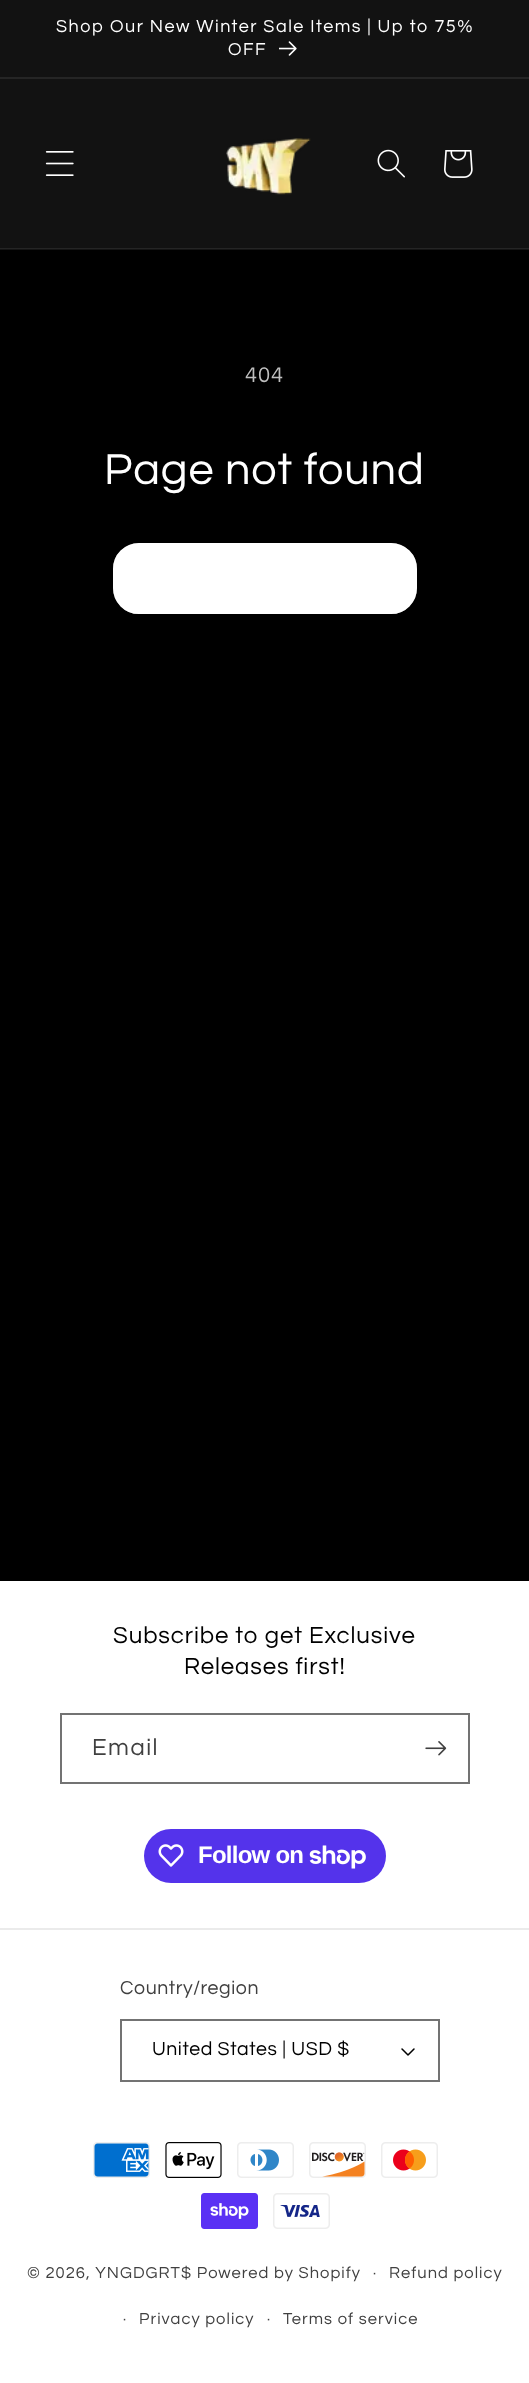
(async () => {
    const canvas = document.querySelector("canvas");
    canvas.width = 529;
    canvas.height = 2383;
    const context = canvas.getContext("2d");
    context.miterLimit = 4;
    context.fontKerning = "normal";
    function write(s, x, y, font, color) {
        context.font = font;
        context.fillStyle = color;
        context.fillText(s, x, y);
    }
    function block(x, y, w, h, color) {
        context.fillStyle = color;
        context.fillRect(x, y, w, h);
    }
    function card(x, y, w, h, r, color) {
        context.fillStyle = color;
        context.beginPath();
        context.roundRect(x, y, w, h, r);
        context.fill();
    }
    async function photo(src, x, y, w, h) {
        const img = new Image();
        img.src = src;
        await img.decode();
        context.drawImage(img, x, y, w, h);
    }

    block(0, 0, 529, 2383, "rgb(0, 0, 0)");
    block(0, 249, 529, 1, "rgb(20, 20, 20)");
    block(0, 0, 529, 77, "rgb(18, 18, 18)");
    block(0, 77, 529, 2, "rgb(37, 37, 37)");
    context.letterSpacing = "1.5px";
    write("Shop Our New Winter Sale Items | Up to 75%", 56, 32, "18px Questrial", "rgb(255, 255, 255)");
    write("OFF", 228, 55, "18px Questrial", "rgb(255, 255, 255)");
    await photo("media/1.png", 279, 41, 18, 15);
    block(0, 79, 529, 169, "rgb(18, 18, 18)");
    block(0, 248, 529, 1, "rgb(37, 37, 37)");
    await photo("media/2.png", 45, 151, 29, 25);
    await photo("media/3.png", 226, 138, 85, 57);
    await photo("media/4.png", 377, 149, 28, 29);
    await photo("media/5.png", 444, 150, 29, 28);
    context.letterSpacing = "0.9px";
    write("404", 245, 382, "22px Questrial", "rgb(191, 191, 191)");
    write("Page not found", 104, 484, "45px Questrial", "rgb(255, 255, 255)");
    context.beginPath();
    context.roundRect(114, 544, 302, 69, 25);
    context.fill();
    context.strokeStyle = "rgb(255, 255, 255)";
    context.lineWidth = 2;
    context.stroke();
    context.beginPath();
    context.roundRect(114, 544, 302, 69, 25);
    context.strokeStyle = "rgba(255, 255, 255, 0.45)";
    context.stroke();
    block(0, 1581, 529, 802, "rgb(255, 255, 255)");
    write("Subscribe to get Exclusive", 113, 1643, "24px Questrial", "rgb(0, 0, 0)");
    write("Releases first!", 184, 1674, "24px Questrial", "rgb(0, 0, 0)");
    context.strokeStyle = "rgb(115, 115, 115)";
    context.strokeRect(61, 1714, 408, 69);
    context.letterSpacing = "1.5px";
    write("Email", 92, 1755, "24px Questrial", "rgb(64, 64, 64)");
    await photo("media/6.png", 425, 1741, 22, 15);
    card(144, 1829, 242, 54, 27, "rgb(84, 51, 235)");
    await photo("media/7.png", 158, 1844, 26, 23);
    context.letterSpacing = "-0.75px";
    write("Follow on", 198, 1863, "bold 24px Liberation Sans", "rgb(255, 255, 255)");
    await photo("media/8.png", 309, 1845, 57, 24);
    block(0, 1928, 529, 2, "rgb(235, 235, 235)");
    context.letterSpacing = "0.6px";
    write("Country/region", 120, 1994, "19.5px Questrial", "rgb(64, 64, 64)");
    await photo("media/9.png", 401, 2048, 14, 8);
    context.strokeRect(121, 2020, 318, 61);
    write("United States | USD $", 152, 2055, "19.5px Questrial", "rgb(0, 0, 0)");
    await photo("media/10.png", 93, 2142, 57, 36);
    await photo("media/11.png", 165, 2142, 57, 36);
    await photo("media/12.png", 237, 2142, 57, 36);
    await photo("media/13.png", 309, 2142, 57, 36);
    await photo("media/14.png", 381, 2142, 57, 36);
    await photo("media/15.png", 201, 2193, 57, 36);
    await photo("media/16.png", 273, 2193, 57, 36);
    context.letterSpacing = "1.05px";
    write("© 2026, YNGDGRT$ Powered by Shopify", 27, 2278, "16.5px Questrial", "rgb(64, 64, 64)");
    write("·", 373, 2278, "15px Questrial", "rgb(64, 64, 64)");
    write("Refund policy", 389, 2278, "16.5px Questrial", "rgb(64, 64, 64)");
    write("·", 123, 2324, "15px Questrial", "rgb(64, 64, 64)");
    write("Privacy policy", 139, 2324, "16.5px Questrial", "rgb(64, 64, 64)");
    write("·", 267, 2324, "15px Questrial", "rgb(64, 64, 64)");
    write("Terms of service", 283, 2324, "16.5px Questrial", "rgb(64, 64, 64)");
})();
